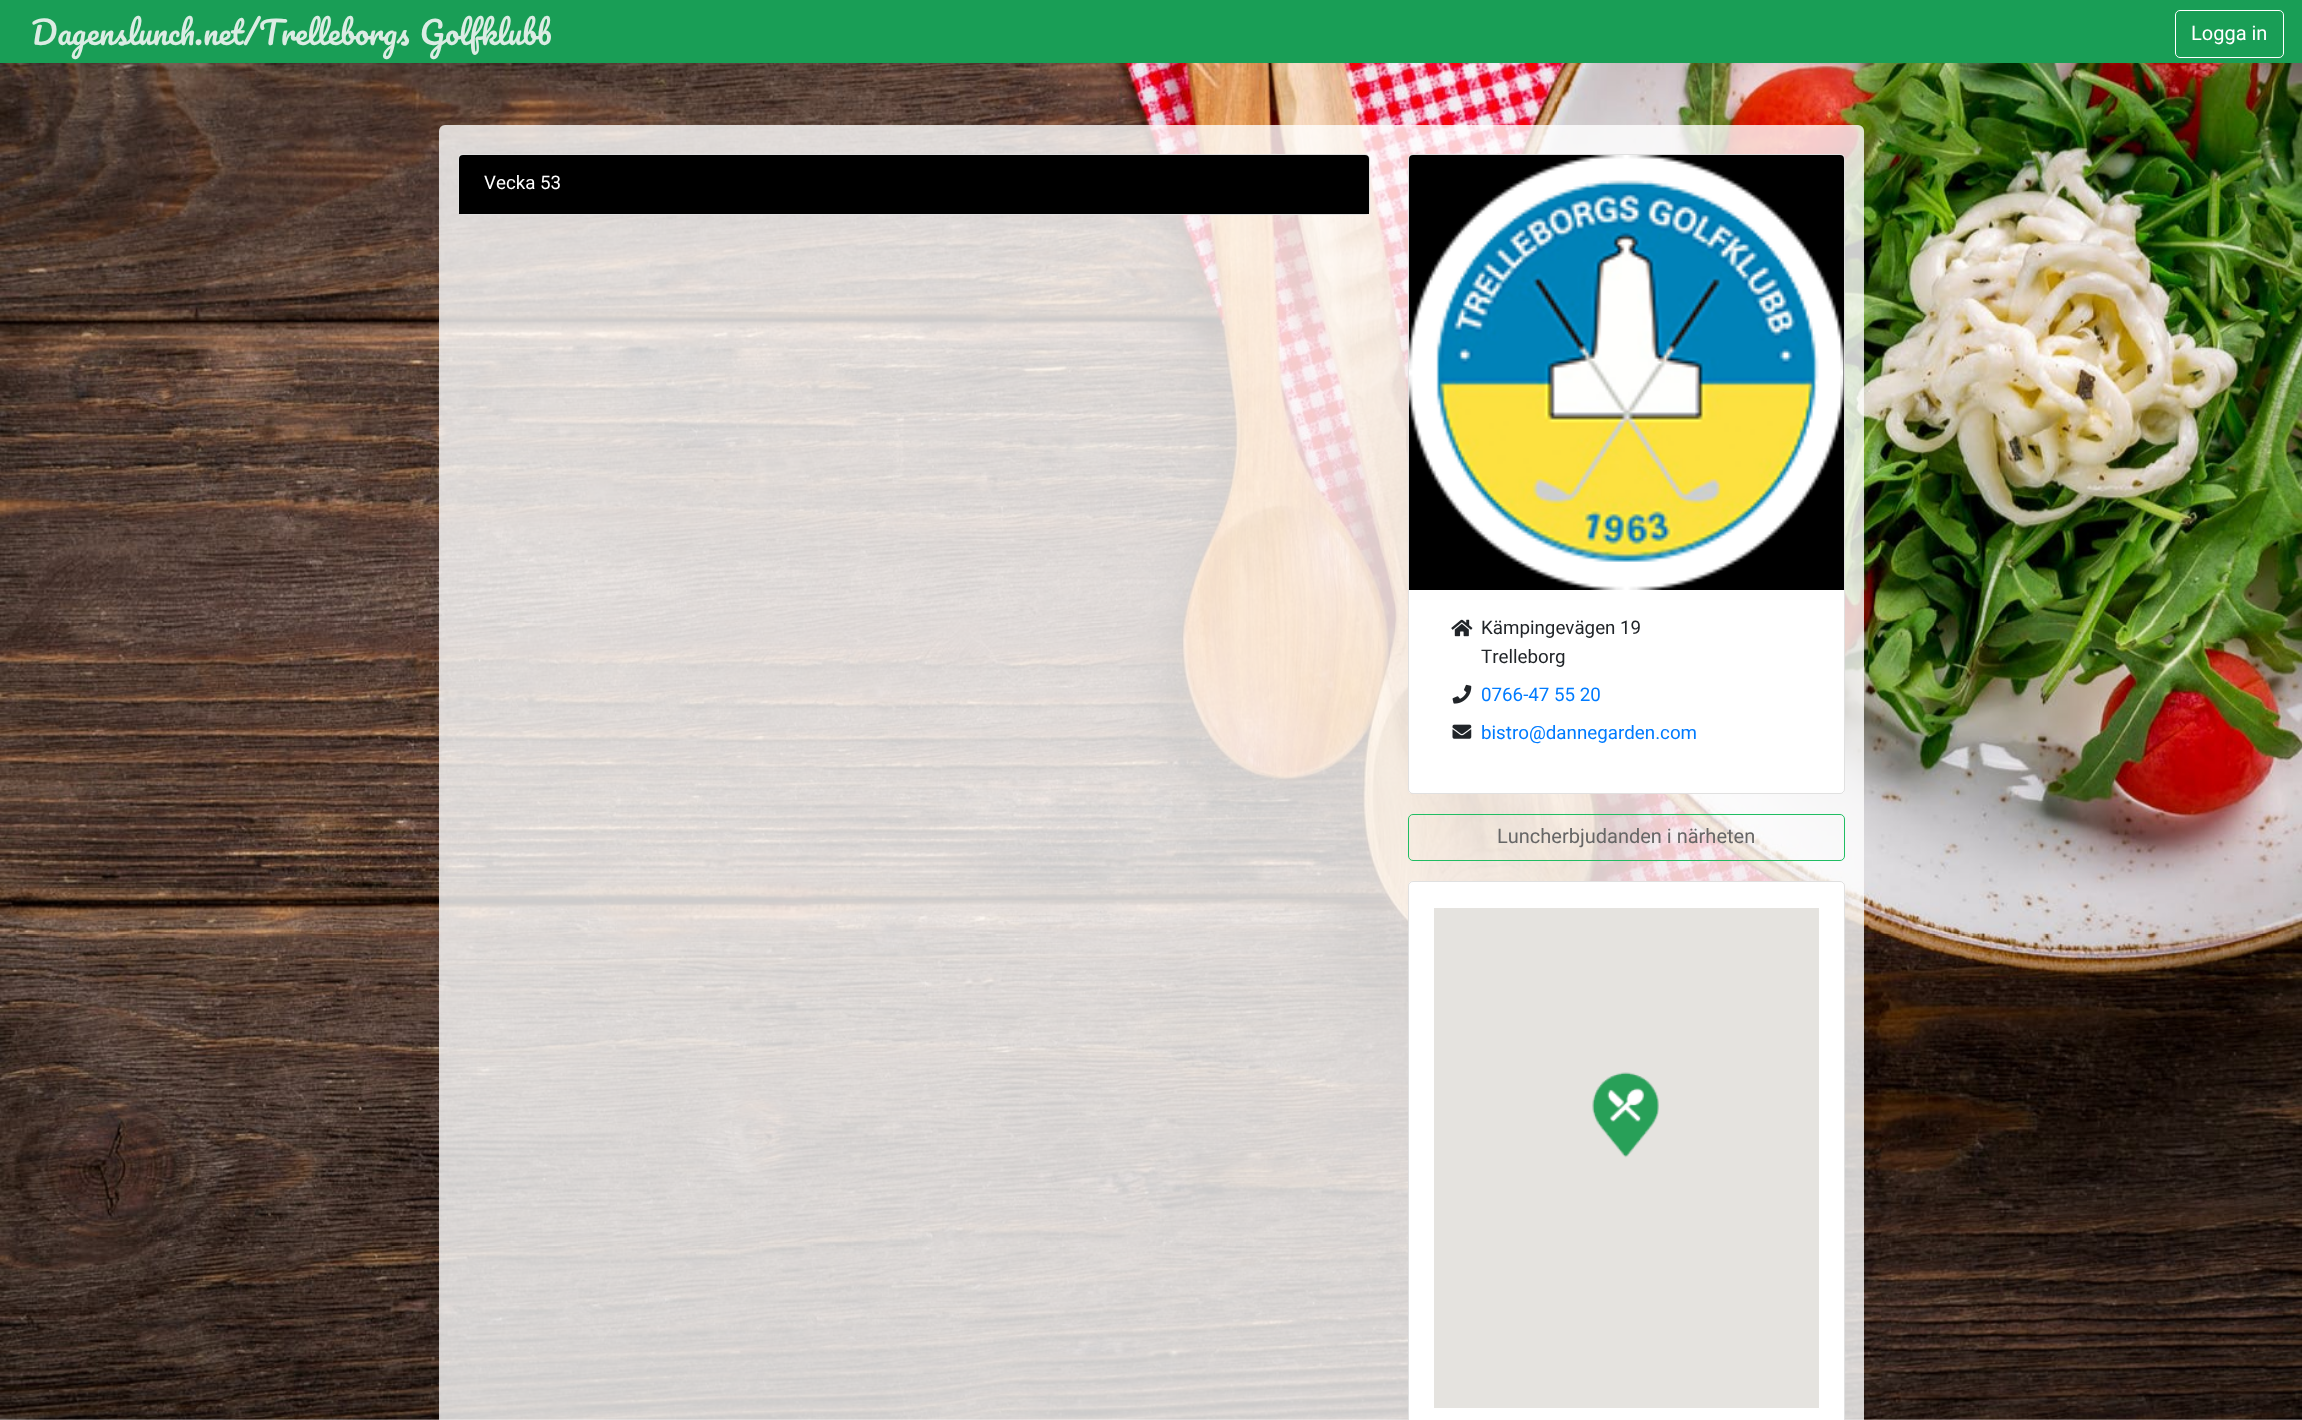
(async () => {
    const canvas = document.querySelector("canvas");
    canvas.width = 2302;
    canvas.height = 1420;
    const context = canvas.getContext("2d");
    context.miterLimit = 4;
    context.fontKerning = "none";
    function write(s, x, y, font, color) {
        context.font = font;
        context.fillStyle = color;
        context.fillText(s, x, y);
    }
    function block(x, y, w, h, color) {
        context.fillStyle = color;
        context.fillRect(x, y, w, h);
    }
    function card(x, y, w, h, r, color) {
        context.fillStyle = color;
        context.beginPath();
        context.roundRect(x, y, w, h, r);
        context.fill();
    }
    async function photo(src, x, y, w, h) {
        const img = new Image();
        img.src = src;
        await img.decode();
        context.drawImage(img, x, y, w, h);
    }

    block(0, 0, 2302, 1420, "rgb(255, 255, 255)");
    await photo("media/1.png", 0, 63, 2302, 1357);
    block(0, 0, 2302, 63, "rgb(25, 158, 86)");
    write("Dagenslunch.net/", 31, 45, "31.25px Pacifico", "rgb(219, 236, 227)");
    context.wordSpacing = "2px";
    write("Trelleborgs Golfklubb", 259, 45, "31.25px Pacifico", "rgb(219, 236, 227)");
    context.beginPath();
    context.roundRect(2175.5, 10.5, 108, 47, 4.5);
    context.strokeStyle = "rgb(255, 255, 255)";
    context.stroke();
    context.wordSpacing = "0px";
    write("Logga in", 2191, 40, "20px Roboto", "rgb(255, 255, 255)");
    card(439, 125, 1425, 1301, 6, "rgba(255, 255, 255, 0.8)");
    card(458, 154, 912, 61, 5, "rgb(255, 255, 255)");
    context.beginPath();
    context.roundRect(458.5, 154.5, 911, 60, 4.5);
    context.strokeStyle = "rgba(0, 0, 0, 0.12)";
    context.stroke();
    context.fillStyle = "rgb(0, 0, 0)";
    context.beginPath();
    context.roundRect(459, 155, 910, 59, [4, 4, 0, 0]);
    context.fill();
    write("Vecka 53", 484, 189, "18.75px Roboto", "rgb(255, 255, 255)");
    card(1408, 154, 437, 640, 5, "rgb(255, 255, 255)");
    context.beginPath();
    context.roundRect(1408.5, 154.5, 436, 639, 4.5);
    context.stroke();
    context.fillStyle = "rgb(0, 0, 0)";
    context.beginPath();
    context.roundRect(1409, 155, 435, 435, [4, 4, 0, 0]);
    context.fill();
    await photo("media/2.png", 1409, 155, 435, 435);
    await photo("media/3.png", 1451, 619, 22, 18);
    write("Kämpingevägen 19", 1481, 634, "18.75px Roboto", "rgb(33, 37, 41)");
    write("Trelleborg", 1481, 663, "18.75px Roboto", "rgb(33, 37, 41)");
    await photo("media/4.png", 1452, 684, 20, 20);
    write("0766-47 55 20", 1481, 701, "18.75px Roboto", "rgb(0, 123, 255)");
    await photo("media/5.png", 1452, 724, 20, 15);
    write("bistro@dannegarden.com", 1481, 739, "18.75px Roboto", "rgb(0, 123, 255)");
    context.beginPath();
    context.roundRect(1408.5, 814.5, 436, 46, 4.5);
    context.strokeStyle = "rgb(32, 189, 98)";
    context.stroke();
    write("Luncherbjudanden i närheten", 1497, 843, "20px Roboto", "rgb(102, 102, 102)");
    card(1408, 881, 437, 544, 5, "rgb(255, 255, 255)");
    context.beginPath();
    context.roundRect(1408.5, 881.5, 436, 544, 4.5);
    context.strokeStyle = "rgba(0, 0, 0, 0.12)";
    context.stroke();
    block(1434, 908, 385, 500, "rgb(229, 227, 223)");
    await photo("media/6.png", 1592, 1072, 67, 86);
})();
